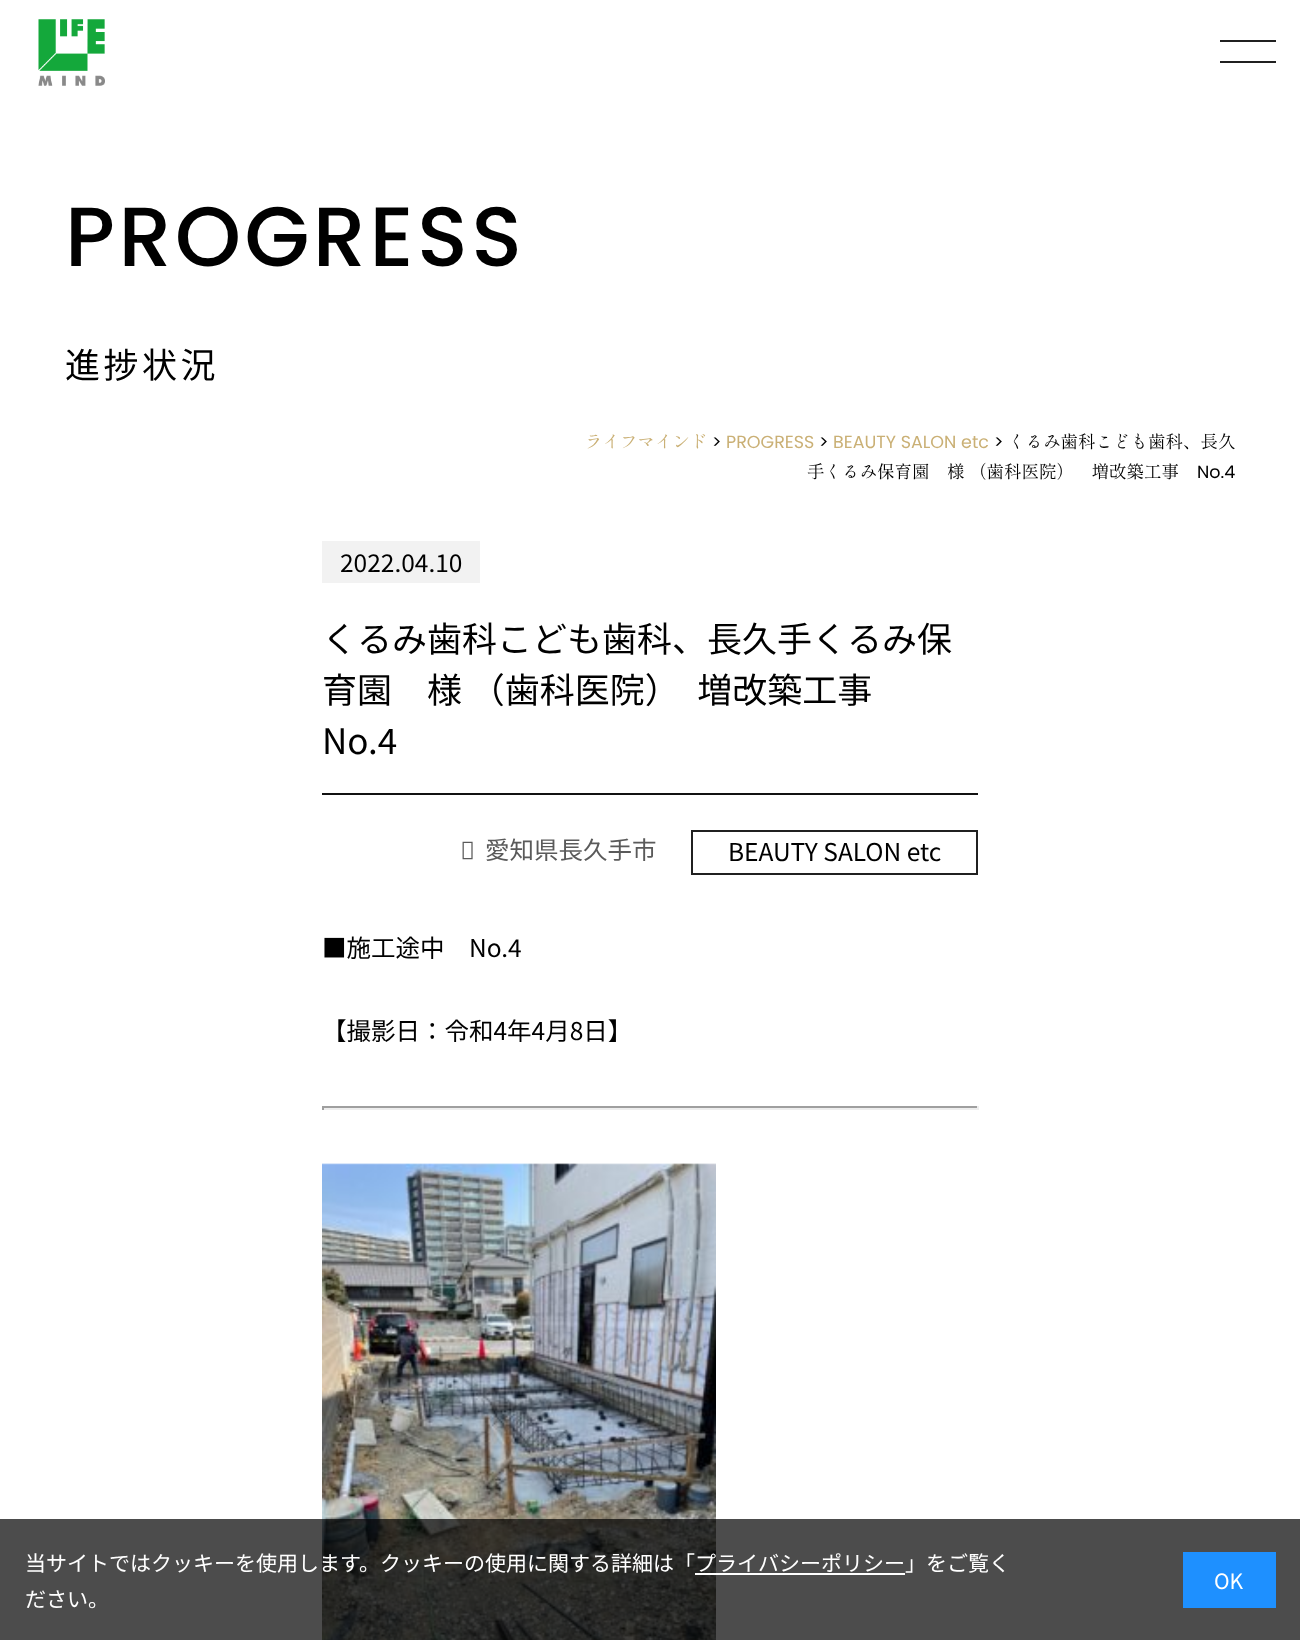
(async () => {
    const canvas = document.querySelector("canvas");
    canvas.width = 1300;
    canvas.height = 1640;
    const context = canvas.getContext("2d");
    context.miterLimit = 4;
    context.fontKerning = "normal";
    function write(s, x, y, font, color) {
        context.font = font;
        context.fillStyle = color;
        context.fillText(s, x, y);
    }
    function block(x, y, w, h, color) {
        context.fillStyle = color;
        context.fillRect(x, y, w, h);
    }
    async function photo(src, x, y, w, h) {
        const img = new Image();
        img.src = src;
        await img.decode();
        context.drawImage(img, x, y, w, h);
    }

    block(0, 0, 1300, 1640, "rgb(255, 255, 255)");
    await photo("media/1.png", 38, 19, 67, 67);
    block(1220, 40, 56, 2, "rgb(32, 32, 32)");
    block(1220, 61, 56, 2, "rgb(32, 32, 32)");
    context.letterSpacing = "3.5px";
    write("PROGRESS", 65, 266, "500 84px Poppins", "rgb(0, 0, 0)");
    write("進捗状況", 65, 378, "100 35px Noto Sans JP", "rgb(0, 0, 0)");
    context.letterSpacing = "0px";
    write("ライフマインド", 585, 448, "17.5px Shippori Mincho", "rgb(202, 176, 117)");
    write(">", 712, 448, "17.5px Poppins", "rgb(0, 0, 0)");
    write("PROGRESS", 726, 448, "17.5px Poppins", "rgb(202, 176, 117)");
    write(">", 819, 448, "17.5px Poppins", "rgb(0, 0, 0)");
    write("BEAUTY SALON etc", 833, 448, "17.5px Poppins", "rgb(202, 176, 117)");
    write(">", 994, 448, "17.5px Poppins", "rgb(0, 0, 0)");
    write("くるみ歯科こども歯科、長久", 1008, 448, "17.5px Shippori Mincho", "rgb(0, 0, 0)");
    write("手くるみ保育園　様 （歯科医院）　増改築工事", 807, 478, "17.5px Shippori Mincho", "rgb(0, 0, 0)");
    write("No.4", 1197, 478, "17.5px Poppins", "rgb(0, 0, 0)");
    block(322, 541, 158, 42, "rgb(242, 242, 242)");
    write("2022.04.10", 340, 572, "100 24.5px Noto Sans JP", "rgb(0, 0, 0)");
    block(322, 793, 656, 2, "rgb(17, 17, 17)");
    write("くるみ歯科こども歯科、長久手くるみ保", 322, 652, "100 35px Noto Sans JP", "rgb(0, 0, 0)");
    write("育園　様 （歯科医院）　増改築工事", 322, 703, "100 35px Noto Sans JP", "rgb(0, 0, 0)");
    write("No.4", 322, 754, "100 35px Noto Sans JP", "rgb(0, 0, 0)");
    await photo("media/2.png", 462, 841, 11, 19);
    write("愛知県長久手市", 485, 859, "100 24.5px Noto Sans JP", "rgb(90, 90, 90)");
    context.strokeStyle = "rgb(32, 32, 32)";
    context.lineWidth = 2;
    context.strokeRect(692, 831, 285, 43);
    write("BEAUTY SALON etc", 728, 861, "100 24.5px Noto Sans JP", "rgb(0, 0, 0)");
    write("■施工途中　No.4", 322, 957, "100 24.5px Noto Sans JP", "rgb(0, 0, 0)");
    write("【撮影日：令和4年4月8日】", 322, 1040, "100 24.5px Noto Sans JP", "rgb(0, 0, 0)");
    block(322, 1106, 656, 2, "rgb(159, 159, 159)");
    block(977, 1106, 2, 4, "rgb(238, 238, 238)");
    block(322, 1108, 656, 2, "rgb(238, 238, 238)");
    block(322, 1106, 2, 4, "rgb(159, 159, 159)");
    await photo("media/3.png", 322, 1163, 394, 477);
    block(0, 1519, 1300, 121, "rgba(0, 0, 0, 0.7)");
    write("当サイトではクッキーを使用します。クッキーの使用に関する詳細は「プライバシーポリシー」をご覧く", 25, 1571, "100 21px Noto Sans JP", "rgb(255, 255, 255)");
    block(695, 1573, 210, 2, "rgb(255, 255, 255)");
    write("ださい。", 25, 1607, "100 21px Noto Sans JP", "rgb(255, 255, 255)");
    block(1183, 1552, 93, 56, "rgb(30, 144, 255)");
    write("OK", 1214, 1589, "100 21px Noto Sans JP", "rgb(255, 255, 255)");
})();
